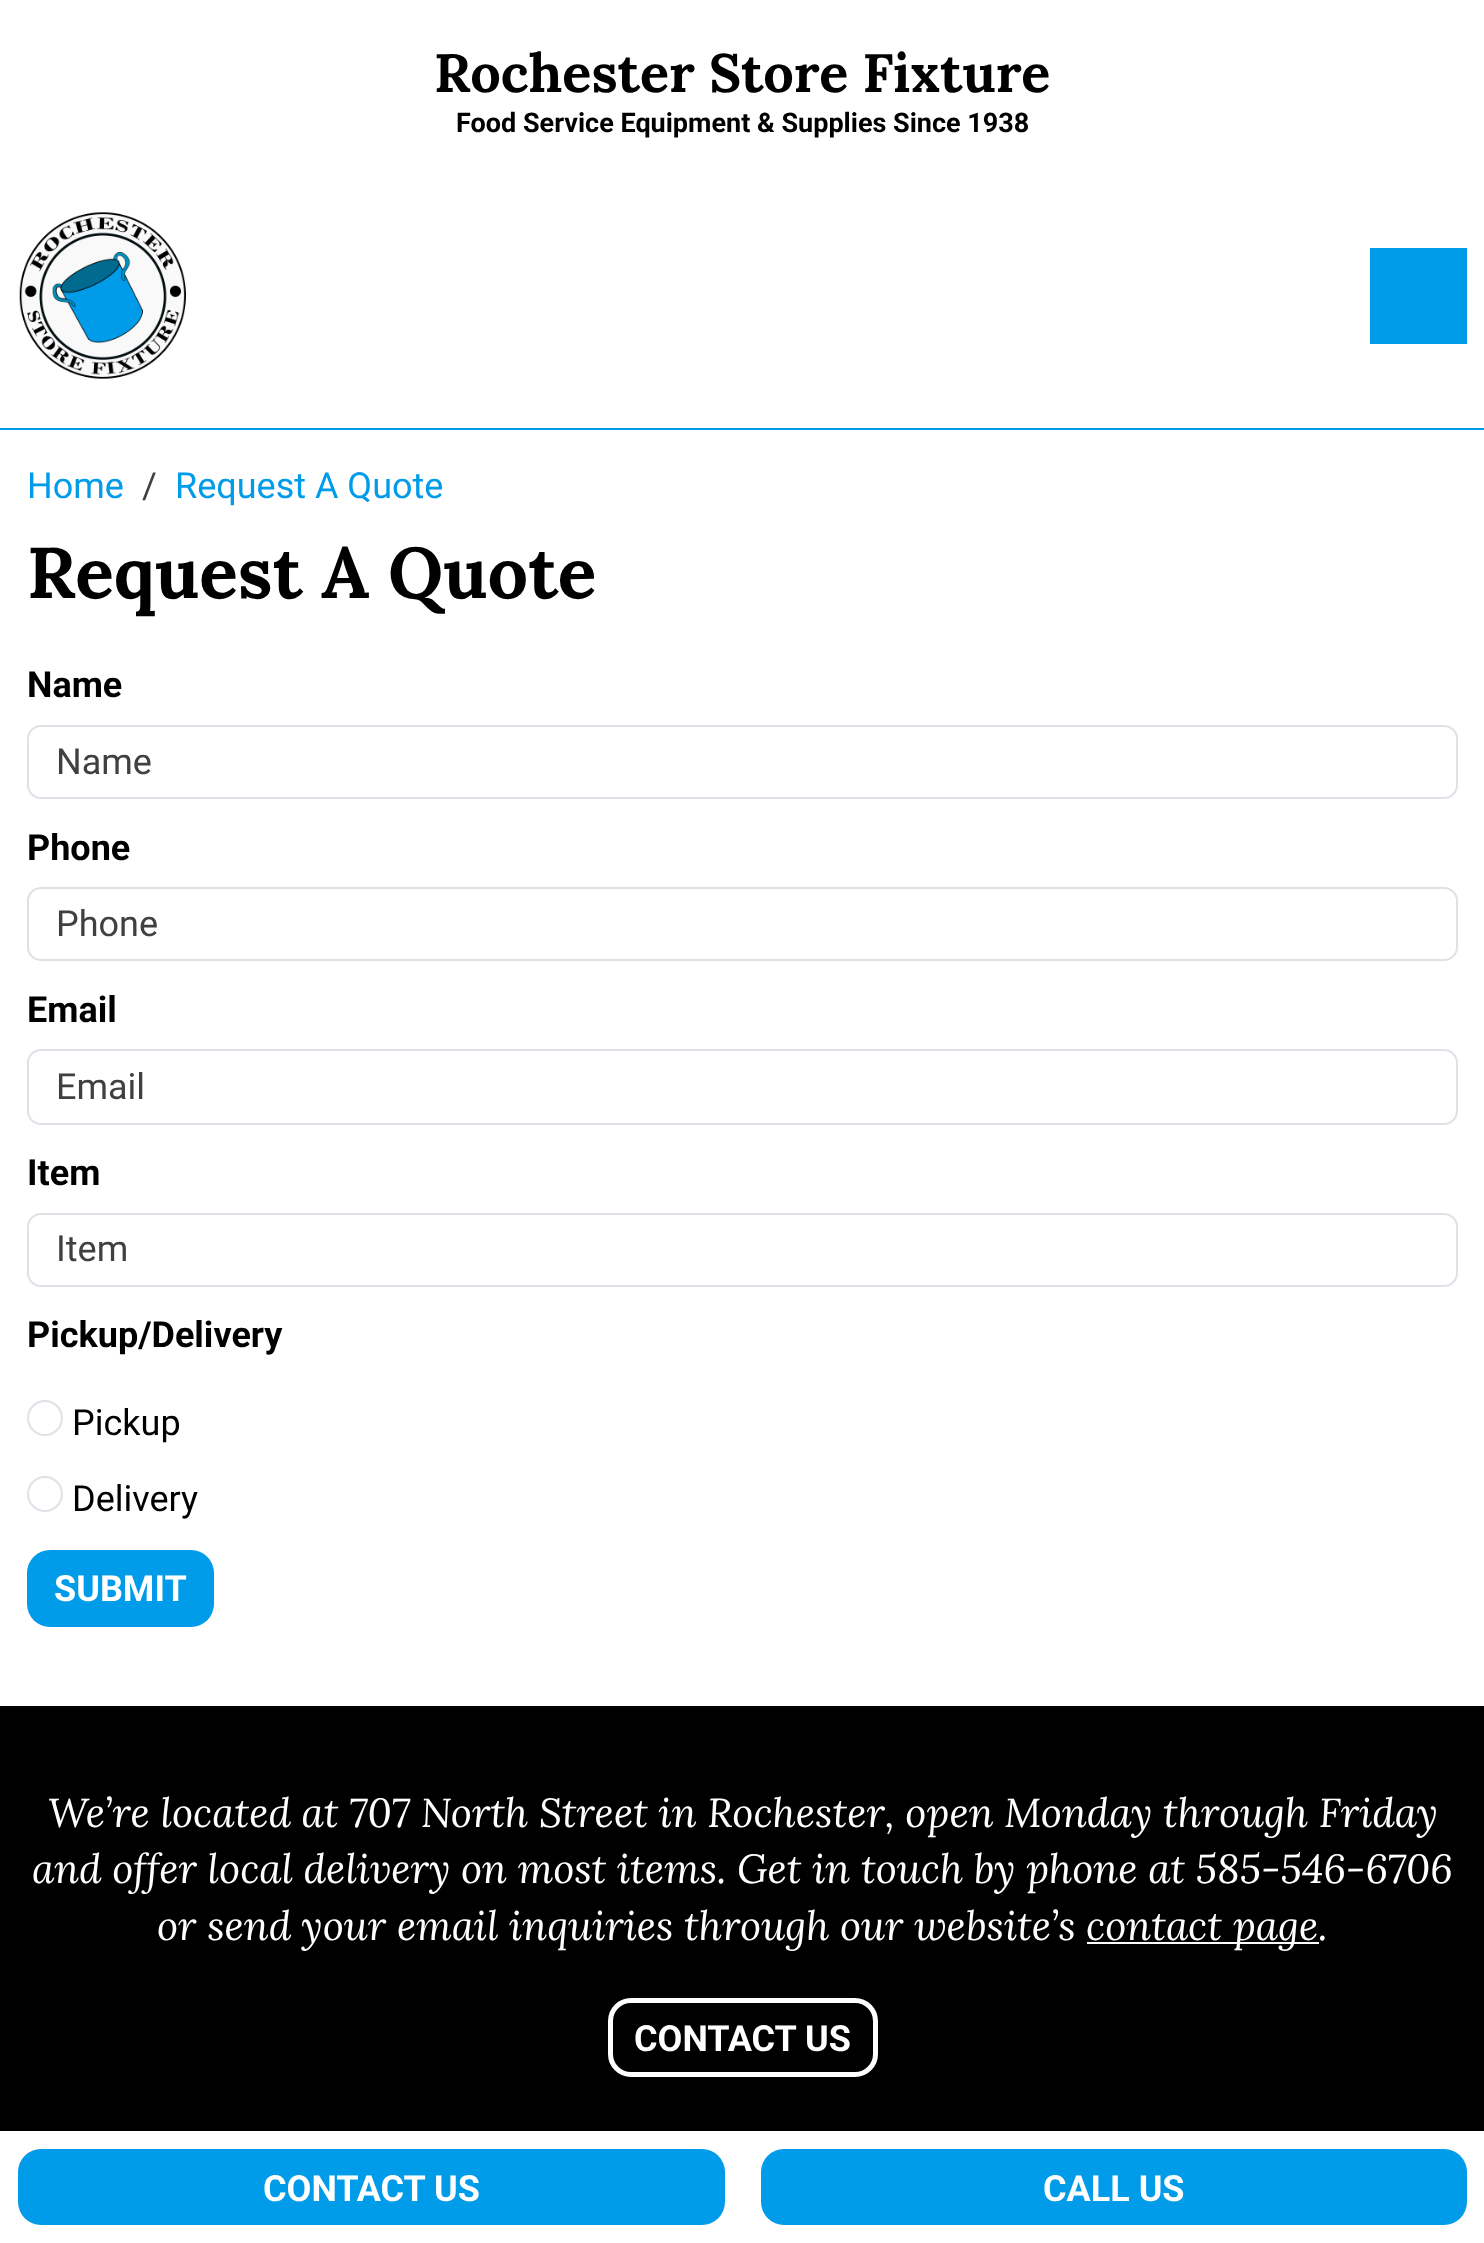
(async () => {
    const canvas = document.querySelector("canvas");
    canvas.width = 1484;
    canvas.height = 2243;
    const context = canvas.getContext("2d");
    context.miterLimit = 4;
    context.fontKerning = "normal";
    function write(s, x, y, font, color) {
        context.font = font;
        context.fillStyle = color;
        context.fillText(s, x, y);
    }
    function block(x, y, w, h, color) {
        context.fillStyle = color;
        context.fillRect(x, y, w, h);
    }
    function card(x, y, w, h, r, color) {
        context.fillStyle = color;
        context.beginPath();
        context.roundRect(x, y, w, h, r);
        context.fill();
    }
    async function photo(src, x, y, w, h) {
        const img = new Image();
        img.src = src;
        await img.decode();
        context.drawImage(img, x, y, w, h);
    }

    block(0, 0, 1484, 2243, "rgb(255, 255, 255)");
    block(0, 428, 1484, 2, "rgb(0, 155, 233)");
    write("Rochester Store Fixture", 434, 92, "bold 54px Lora", "rgb(0, 0, 0)");
    write("Food Service Equipment & Supplies Since 1938", 456, 132, "bold 27px Roboto", "rgb(0, 0, 0)");
    await photo("media/1.png", 19, 212, 167, 167);
    block(1370, 248, 97, 96, "rgb(0, 155, 233)");
    write("Home", 27, 498, "36px Roboto", "rgb(0, 155, 233)");
    write("/", 142, 498, "36px Roboto", "rgb(64, 64, 64)");
    write("Request A Quote", 175, 498, "36px Roboto", "rgb(0, 155, 233)");
    write("Request A Quote", 27, 598, "bold 71.75px Lora", "rgb(0, 0, 0)");
    write("Name", 27, 697, "bold 36px Roboto", "rgb(0, 0, 0)");
    context.beginPath();
    context.roundRect(28, 726, 1429, 72, 13);
    context.strokeStyle = "rgb(222, 226, 230)";
    context.lineWidth = 2;
    context.stroke();
    write("Name", 56, 774, "36px Roboto", "rgb(64, 64, 64)");
    write("Phone", 27, 860, "bold 36px Roboto", "rgb(0, 0, 0)");
    context.beginPath();
    context.roundRect(28, 888, 1429, 72, 13);
    context.stroke();
    write("Phone", 56, 936, "36px Roboto", "rgb(64, 64, 64)");
    write("Email", 27, 1022, "bold 36px Roboto", "rgb(0, 0, 0)");
    context.beginPath();
    context.roundRect(28, 1050, 1429, 74, 13);
    context.stroke();
    write("Email", 56, 1099, "36px Roboto", "rgb(64, 64, 64)");
    write("Item", 27, 1185, "bold 36px Roboto", "rgb(0, 0, 0)");
    context.beginPath();
    context.roundRect(28, 1214, 1429, 72, 13);
    context.stroke();
    write("Item", 56, 1261, "36px Roboto", "rgb(64, 64, 64)");
    write("Pickup/Delivery", 27, 1347, "bold 36px Roboto", "rgb(0, 0, 0)");
    context.beginPath();
    context.arc(45, 1418, 17, 0, Math.PI * 2);
    context.stroke();
    write("Pickup", 72, 1435, "36px Roboto", "rgb(0, 0, 0)");
    context.beginPath();
    context.arc(45, 1494, 17, 0, Math.PI * 2);
    context.stroke();
    write("Delivery", 72, 1511, "36px Roboto", "rgb(0, 0, 0)");
    card(27, 1550, 187, 77, 23, "rgb(0, 155, 233)");
    write("SUBMIT", 54, 1601, "bold 36px Roboto", "rgb(255, 255, 255)");
    block(0, 1706, 1484, 425, "rgb(0, 0, 0)");
    write("We’re located at 707 North Street in Rochester, open Monday through Friday", 48, 1827, "italic 40.5px Lora", "rgb(255, 255, 255)");
    write("and offer local delivery on most items. Get in touch by phone at 585-546-6706", 32, 1883, "italic 40.5px Lora", "rgb(255, 255, 255)");
    write("or send your email inquiries through our website’s", 157, 1940, "italic 40.5px Lora", "rgb(255, 255, 255)");
    block(1087, 1942, 232, 2, "rgb(255, 255, 255)");
    write("contact page.", 1086, 1940, "italic 40.5px Lora", "rgb(255, 255, 255)");
    context.beginPath();
    context.roundRect(610.5, 2000.5, 265, 74, 20.5);
    context.strokeStyle = "rgb(255, 255, 255)";
    context.lineWidth = 5;
    context.stroke();
    write("CONTACT US", 634, 2051, "bold 36px Roboto", "rgb(255, 255, 255)");
    card(18, 2149, 707, 76, 23, "rgb(0, 155, 233)");
    write("CONTACT US", 263, 2201, "bold 36px Roboto", "rgb(255, 255, 255)");
    card(761, 2149, 706, 76, 23, "rgb(0, 155, 233)");
    write("CALL US", 1043, 2201, "bold 36px Roboto", "rgb(255, 255, 255)");
})();
